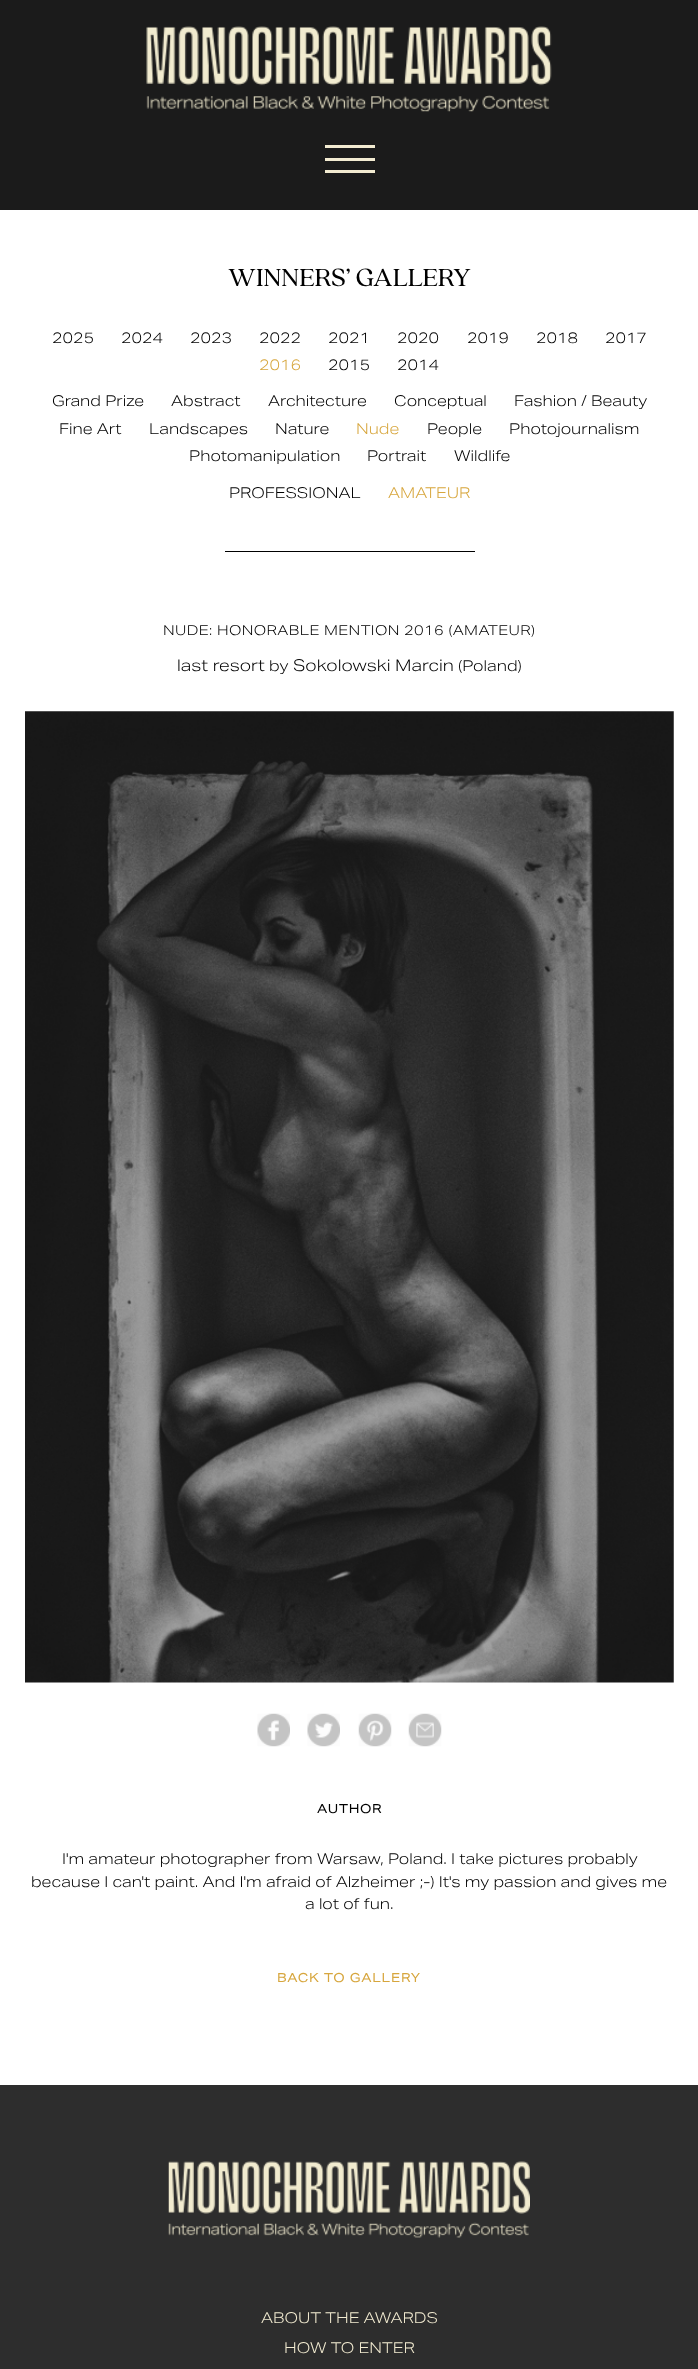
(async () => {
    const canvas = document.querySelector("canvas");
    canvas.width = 698;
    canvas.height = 2369;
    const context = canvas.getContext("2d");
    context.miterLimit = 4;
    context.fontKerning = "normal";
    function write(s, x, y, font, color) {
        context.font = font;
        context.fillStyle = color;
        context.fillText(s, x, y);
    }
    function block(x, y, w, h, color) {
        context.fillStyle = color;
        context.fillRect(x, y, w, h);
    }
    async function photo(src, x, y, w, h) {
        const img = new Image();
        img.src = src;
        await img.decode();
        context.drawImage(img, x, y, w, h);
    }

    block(0, 0, 698, 2369, "rgb(27, 27, 27)");
    await photo("media/1.png", 146, 26, 406, 86);
    block(325, 170, 50, 3, "rgb(242, 235, 209)");
    block(325, 145, 50, 3, "rgb(242, 235, 209)");
    block(325, 158, 50, 3, "rgb(242, 235, 209)");
    block(0, 210, 698, 1875, "rgb(255, 255, 255)");
    write("WINNERS’ GALLERY", 228, 286, "27.5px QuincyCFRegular", "rgb(0, 0, 0)");
    write("2025", 52, 343, "300 15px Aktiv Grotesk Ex", "rgb(0, 0, 0)");
    write("2024", 121, 343, "300 15px Aktiv Grotesk Ex", "rgb(0, 0, 0)");
    write("2023", 190, 343, "300 15px Aktiv Grotesk Ex", "rgb(0, 0, 0)");
    write("2022", 259, 343, "300 15px Aktiv Grotesk Ex", "rgb(0, 0, 0)");
    write("2021", 328, 343, "300 15px Aktiv Grotesk Ex", "rgb(0, 0, 0)");
    write("2020", 397, 343, "300 15px Aktiv Grotesk Ex", "rgb(0, 0, 0)");
    write("2019", 467, 343, "300 15px Aktiv Grotesk Ex", "rgb(0, 0, 0)");
    write("2018", 536, 343, "300 15px Aktiv Grotesk Ex", "rgb(0, 0, 0)");
    write("2017", 605, 343, "300 15px Aktiv Grotesk Ex", "rgb(0, 0, 0)");
    write("2016", 259, 370, "300 15px Aktiv Grotesk Ex", "rgb(215, 166, 61)");
    write("2015", 328, 370, "300 15px Aktiv Grotesk Ex", "rgb(0, 0, 0)");
    write("2014", 397, 370, "300 15px Aktiv Grotesk Ex", "rgb(0, 0, 0)");
    write("Grand Prize", 52, 406, "300 15px Aktiv Grotesk Ex", "rgb(0, 0, 0)");
    write("Abstract", 171, 406, "300 15px Aktiv Grotesk Ex", "rgb(0, 0, 0)");
    write("Architecture", 268, 406, "300 15px Aktiv Grotesk Ex", "rgb(0, 0, 0)");
    write("Conceptual", 394, 406, "300 15px Aktiv Grotesk Ex", "rgb(0, 0, 0)");
    write("Fashion / Beauty", 514, 406, "300 15px Aktiv Grotesk Ex", "rgb(0, 0, 0)");
    write("Fine Art", 59, 434, "300 15px Aktiv Grotesk Ex", "rgb(0, 0, 0)");
    write("Landscapes", 149, 434, "300 15px Aktiv Grotesk Ex", "rgb(0, 0, 0)");
    write("Nature", 275, 434, "300 15px Aktiv Grotesk Ex", "rgb(0, 0, 0)");
    write("Nude", 356, 434, "300 15px Aktiv Grotesk Ex", "rgb(215, 166, 61)");
    write("People", 427, 434, "300 15px Aktiv Grotesk Ex", "rgb(0, 0, 0)");
    write("Photojournalism", 509, 434, "300 15px Aktiv Grotesk Ex", "rgb(0, 0, 0)");
    write("Photomanipulation", 189, 461, "300 15px Aktiv Grotesk Ex", "rgb(0, 0, 0)");
    write("Portrait", 367, 461, "300 15px Aktiv Grotesk Ex", "rgb(0, 0, 0)");
    write("Wildlife", 454, 461, "300 15px Aktiv Grotesk Ex", "rgb(0, 0, 0)");
    write("PROFESSIONAL", 229, 498, "300 15px Aktiv Grotesk Ex", "rgb(0, 0, 0)");
    write("AMATEUR", 388, 498, "300 15px Aktiv Grotesk Ex", "rgb(215, 166, 61)");
    block(225, 551, 250, 1, "rgb(0, 0, 0)");
    context.letterSpacing = "0.4px";
    write("NUDE: HONORABLE MENTION 2016 (AMATEUR)", 163, 635, "300 13.75px Aktiv Grotesk Ex", "rgb(0, 0, 0)");
    context.letterSpacing = "0px";
    write("last resort", 177, 671, "300 16.25px Aktiv Grotesk Ex", "rgb(0, 0, 0)");
    write("by", 269, 671, "300 15px Aktiv Grotesk Ex", "rgb(0, 0, 0)");
    write("Sokolowski Marcin", 293, 671, "300 16.25px Aktiv Grotesk Ex", "rgb(0, 0, 0)");
    write("(Poland)", 458, 671, "300 15px Aktiv Grotesk Ex", "rgb(0, 0, 0)");
    await photo("media/2.png", 25, 711, 649, 972);
    await photo("media/3.png", 257, 1713, 33, 34);
    await photo("media/4.png", 307, 1713, 33, 34);
    await photo("media/5.png", 358, 1713, 34, 34);
    await photo("media/6.png", 408, 1713, 34, 34);
    context.letterSpacing = "0.75px";
    write("AUTHOR", 317, 1813, "12.5px Aktiv Grotesk Ex", "rgb(0, 0, 0)");
    context.letterSpacing = "0px";
    write("I'm amateur photographer from Warsaw, Poland. I take pictures probably", 62, 1864, "300 15px Aktiv Grotesk Ex", "rgb(0, 0, 0)");
    write("because I can't paint. And I'm afraid of Alzheimer ;-) It's my passion and gives me", 31, 1887, "300 15px Aktiv Grotesk Ex", "rgb(0, 0, 0)");
    write("a lot of fun.", 305, 1909, "300 15px Aktiv Grotesk Ex", "rgb(0, 0, 0)");
    context.letterSpacing = "0.75px";
    write("BACK TO GALLERY", 277, 1982, "12.5px Aktiv Grotesk Ex", "rgb(215, 166, 61)");
    block(0, 2085, 698, 284, "rgb(45, 45, 45)");
    await photo("media/7.png", 168, 2161, 362, 77);
    context.letterSpacing = "0px";
    write("ABOUT THE AWARDS", 261, 2323, "300 15px Aktiv Grotesk Ex", "rgb(242, 235, 209)");
    write("HOW TO ENTER", 284, 2353, "300 15px Aktiv Grotesk Ex", "rgb(242, 235, 209)");
})();
